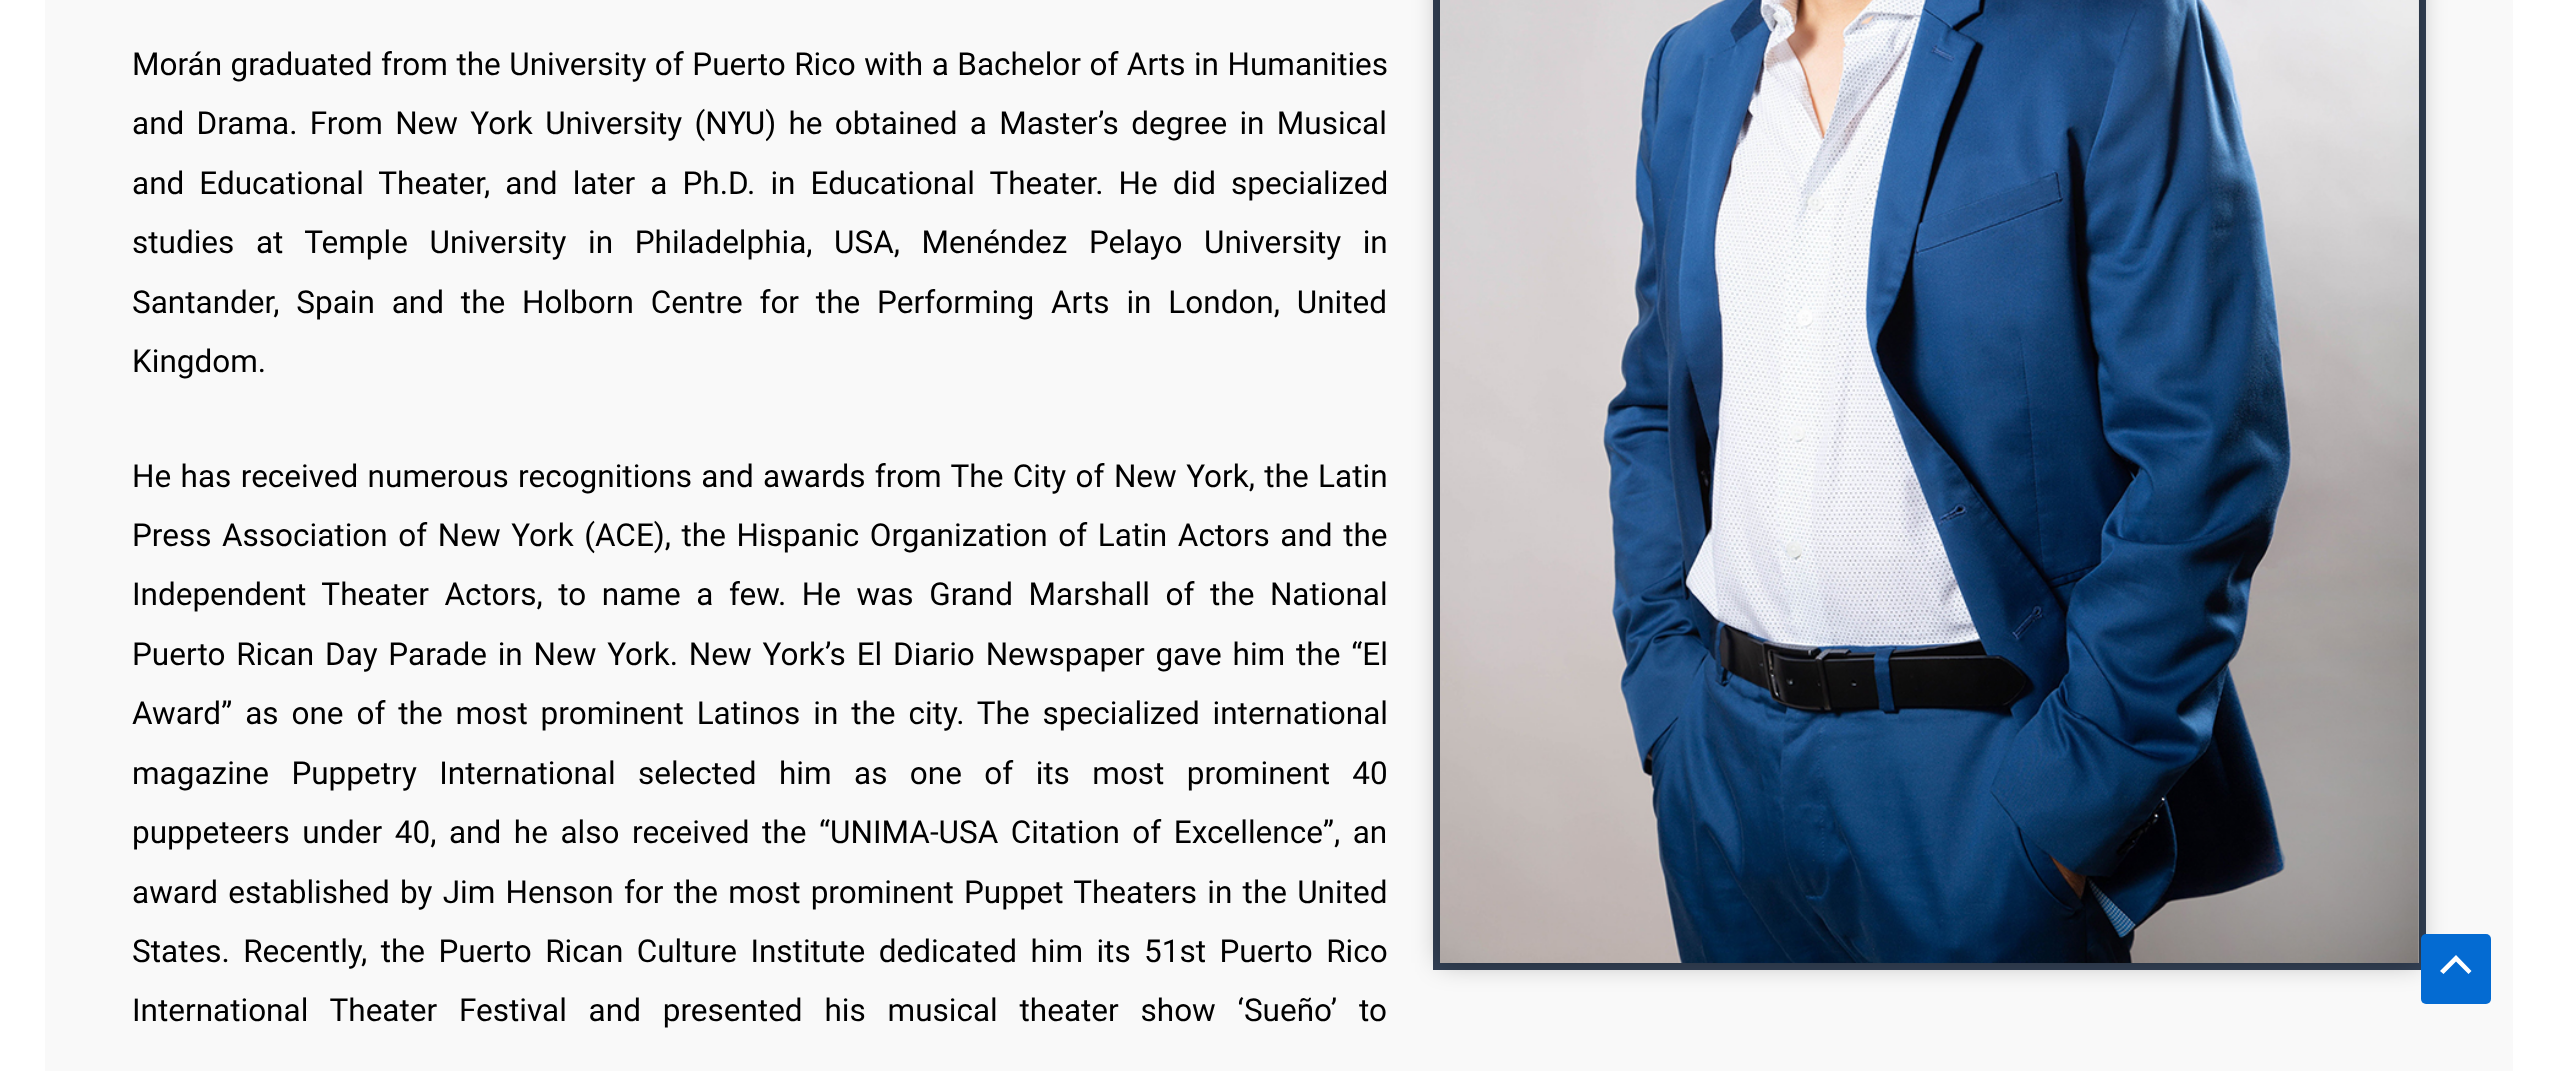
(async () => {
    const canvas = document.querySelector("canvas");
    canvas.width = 2558;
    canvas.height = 1071;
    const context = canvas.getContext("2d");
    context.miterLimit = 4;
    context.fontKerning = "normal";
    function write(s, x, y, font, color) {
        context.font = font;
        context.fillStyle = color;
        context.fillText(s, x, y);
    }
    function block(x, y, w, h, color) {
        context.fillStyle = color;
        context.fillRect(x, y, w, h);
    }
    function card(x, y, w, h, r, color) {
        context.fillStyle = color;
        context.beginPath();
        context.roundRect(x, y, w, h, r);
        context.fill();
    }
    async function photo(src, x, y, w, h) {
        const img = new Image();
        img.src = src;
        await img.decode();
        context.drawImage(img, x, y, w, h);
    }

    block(0, 0, 2558, 1071, "rgb(255, 255, 255)");
    block(45, 0, 2468, 1071, "rgb(249, 249, 249)");
    context.wordSpacing = "0.7px";
    write("Morán graduated from the University of Puerto Rico with a Bachelor of Arts in Humanities", 132, 75, "31.5px Roboto", "rgb(0, 0, 0)");
    context.wordSpacing = "4.5px";
    write("and Drama. From New York University (NYU) he obtained a Master’s degree in Musical", 132, 134, "31.5px Roboto", "rgb(0, 0, 0)");
    context.wordSpacing = "7.25px";
    write("and Educational Theater, and later a Ph.D. in Educational Theater. He did specialized", 132, 194, "31.5px Roboto", "rgb(0, 0, 0)");
    context.wordSpacing = "13.75px";
    write("studies at Temple University in Philadelphia, USA, Menéndez Pelayo University in", 132, 253, "31.5px Roboto", "rgb(0, 0, 0)");
    context.wordSpacing = "9px";
    write("Santander, Spain and the Holborn Centre for the Performing Arts in London, United", 132, 313, "31.5px Roboto", "rgb(0, 0, 0)");
    context.wordSpacing = "0px";
    write("Kingdom.", 132, 372, "31.5px Roboto", "rgb(0, 0, 0)");
    context.wordSpacing = "1.6px";
    write("He has received numerous recognitions and awards from The City of New York, the Latin", 132, 487, "31.5px Roboto", "rgb(0, 0, 0)");
    context.wordSpacing = "2.75px";
    write("Press Association of New York (ACE), the Hispanic Organization of Latin Actors and the", 132, 546, "31.5px Roboto", "rgb(0, 0, 0)");
    context.wordSpacing = "7.75px";
    write("Independent Theater Actors, to name a few. He was Grand Marshall of the National", 132, 605, "31.5px Roboto", "rgb(0, 0, 0)");
    context.wordSpacing = "3px";
    write("Puerto Rican Day Parade in New York. New York’s El Diario Newspaper gave him the “El", 132, 665, "31.5px Roboto", "rgb(0, 0, 0)");
    context.wordSpacing = "5.1px";
    write("Award” as one of the most prominent Latinos in the city. The specialized international", 132, 724, "31.5px Roboto", "rgb(0, 0, 0)");
    context.wordSpacing = "14.6px";
    write("magazine Puppetry International selected him as one of its most prominent 40", 132, 784, "31.5px Roboto", "rgb(0, 0, 0)");
    context.wordSpacing = "4.75px";
    write("puppeteers under 40, and he also received the “UNIMA-USA Citation of Excellence”, an", 132, 843, "31.5px Roboto", "rgb(0, 0, 0)");
    context.wordSpacing = "2.4px";
    write("award established by Jim Henson for the most prominent Puppet Theaters in the United", 132, 903, "31.5px Roboto", "rgb(0, 0, 0)");
    context.wordSpacing = "5.6px";
    write("States. Recently, the Puerto Rican Culture Institute dedicated him its 51st Puerto Rico", 132, 962, "31.5px Roboto", "rgb(0, 0, 0)");
    context.wordSpacing = "14px";
    write("International Theater Festival and presented his musical theater show ‘Sueño’ to", 132, 1021, "31.5px Roboto", "rgb(0, 0, 0)");
    context.strokeStyle = "rgb(51, 65, 85)";
    context.lineWidth = 7;
    context.strokeRect(1436.5, -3.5, 986, 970);
    context.fillStyle = "rgba(0, 0, 0, 0.3)";
    context.filter = "blur(13.5px)";
    context.beginPath();
    context.rect(1440, -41, 979, 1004);
    context.fill();
    context.filter = "none";
    await photo("media/1.png", 1440, 0, 979, 963);
    card(2421, 934, 70, 70, 5, "rgb(4, 107, 210)");
    context.fillStyle = "rgb(255, 255, 255)";
    context.beginPath();
    context.moveTo(2471.5, 971);
    context.lineTo(2456, 955);
    context.lineTo(2440, 971);
    context.lineTo(2443.5, 974);
    context.lineTo(2456, 961.5);
    context.lineTo(2468.5, 974);
    context.closePath();
    context.fill();
})();
